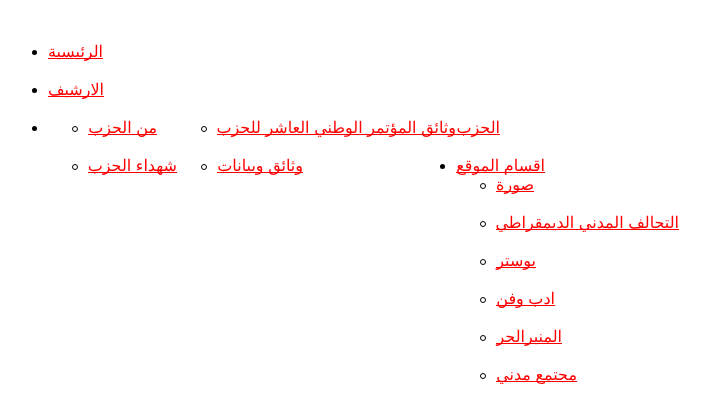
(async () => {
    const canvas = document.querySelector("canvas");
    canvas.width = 712;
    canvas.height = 393;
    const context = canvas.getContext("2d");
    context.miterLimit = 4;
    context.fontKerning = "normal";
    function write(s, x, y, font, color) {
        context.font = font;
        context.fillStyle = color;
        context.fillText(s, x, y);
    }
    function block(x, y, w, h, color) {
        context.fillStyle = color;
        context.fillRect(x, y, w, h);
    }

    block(0, 0, 712, 393, "rgb(255, 255, 255)");
    block(48, 58, 55, 1, "rgb(255, 0, 0)");
    context.direction = "rtl";
    write("الرئيسية", 103, 57, "16px DejaVu Sans", "rgb(255, 0, 0)");
    context.fillStyle = "rgb(0, 0, 0)";
    context.beginPath();
    context.arc(34.5, 52.5, 2.5, 0, Math.PI * 2);
    context.fill();
    block(48, 96, 56, 1, "rgb(255, 0, 0)");
    write("الارشیف", 104, 95, "16px DejaVu Sans", "rgb(255, 0, 0)");
    context.fillStyle = "rgb(0, 0, 0)";
    context.beginPath();
    context.arc(34.5, 90.5, 2.5, 0, Math.PI * 2);
    context.fill();
    block(456, 134, 44, 1, "rgb(255, 0, 0)");
    block(217, 134, 239, 1, "rgb(255, 0, 0)");
    context.wordSpacing = "-0.5px";
    write("وثائق المؤتمر الوطني العاشر للحزب", 456, 133, "16px DejaVu Sans", "rgb(255, 0, 0)");
    context.wordSpacing = "0px";
    write("الحزب", 500, 133, "16px DejaVu Sans", "rgb(255, 0, 0)");
    context.beginPath();
    context.arc(204, 129, 2.5, 0, Math.PI * 2);
    context.strokeStyle = "rgb(0, 0, 0)";
    context.stroke();
    block(217, 172, 86, 1, "rgb(255, 0, 0)");
    context.wordSpacing = "-0.5px";
    write("وثائق وبيانات", 303, 171, "16px DejaVu Sans", "rgb(255, 0, 0)");
    context.beginPath();
    context.arc(204, 167, 2.5, 0, Math.PI * 2);
    context.stroke();
    block(88, 134, 69, 1, "rgb(255, 0, 0)");
    write("من الحزب", 157, 133, "16px DejaVu Sans", "rgb(255, 0, 0)");
    context.beginPath();
    context.arc(75, 129, 2.5, 0, Math.PI * 2);
    context.stroke();
    block(88, 172, 89, 1, "rgb(255, 0, 0)");
    write("شهداء الحزب", 177, 171, "16px DejaVu Sans", "rgb(255, 0, 0)");
    context.beginPath();
    context.arc(75, 167, 2.5, 0, Math.PI * 2);
    context.stroke();
    context.fillStyle = "rgb(0, 0, 0)";
    context.beginPath();
    context.arc(34.5, 128.5, 2.5, 0, Math.PI * 2);
    context.fill();
    block(456, 172, 89, 1, "rgb(255, 0, 0)");
    write("اقسام الموقع", 545, 171, "16px DejaVu Sans", "rgb(255, 0, 0)");
    context.fillStyle = "rgb(0, 0, 0)";
    context.beginPath();
    context.arc(442.5, 166.5, 2.5, 0, Math.PI * 2);
    context.fill();
    block(496, 191, 38, 1, "rgb(255, 0, 0)");
    context.wordSpacing = "0px";
    write("صورة", 534, 190, "16px DejaVu Sans", "rgb(255, 0, 0)");
    context.beginPath();
    context.arc(483, 186, 2.5, 0, Math.PI * 2);
    context.stroke();
    block(496, 229, 183, 1, "rgb(255, 0, 0)");
    context.wordSpacing = "-0.5px";
    write("التحالف المدني الديمقراطي", 679, 228, "16px DejaVu Sans", "rgb(255, 0, 0)");
    context.beginPath();
    context.arc(483, 224, 2.5, 0, Math.PI * 2);
    context.stroke();
    block(496, 267, 40, 1, "rgb(255, 0, 0)");
    context.wordSpacing = "0px";
    write("بوستر", 536, 266, "16px DejaVu Sans", "rgb(255, 0, 0)");
    context.beginPath();
    context.arc(483, 262, 2.5, 0, Math.PI * 2);
    context.stroke();
    block(496, 305, 59, 1, "rgb(255, 0, 0)");
    context.wordSpacing = "-0.5px";
    write("ادب وفن", 555, 304, "16px DejaVu Sans", "rgb(255, 0, 0)");
    context.beginPath();
    context.arc(483, 300, 2.5, 0, Math.PI * 2);
    context.stroke();
    block(496, 343, 66, 1, "rgb(255, 0, 0)");
    context.wordSpacing = "0px";
    write("المنبرالحر", 562, 342, "16px DejaVu Sans", "rgb(255, 0, 0)");
    context.beginPath();
    context.arc(483, 338, 2.5, 0, Math.PI * 2);
    context.stroke();
    block(496, 381, 81, 1, "rgb(255, 0, 0)");
    context.wordSpacing = "-0.5px";
    write("مجتمع مدني", 577, 380, "16px DejaVu Sans", "rgb(255, 0, 0)");
    context.beginPath();
    context.arc(483, 376, 2.5, 0, Math.PI * 2);
    context.stroke();
})();
